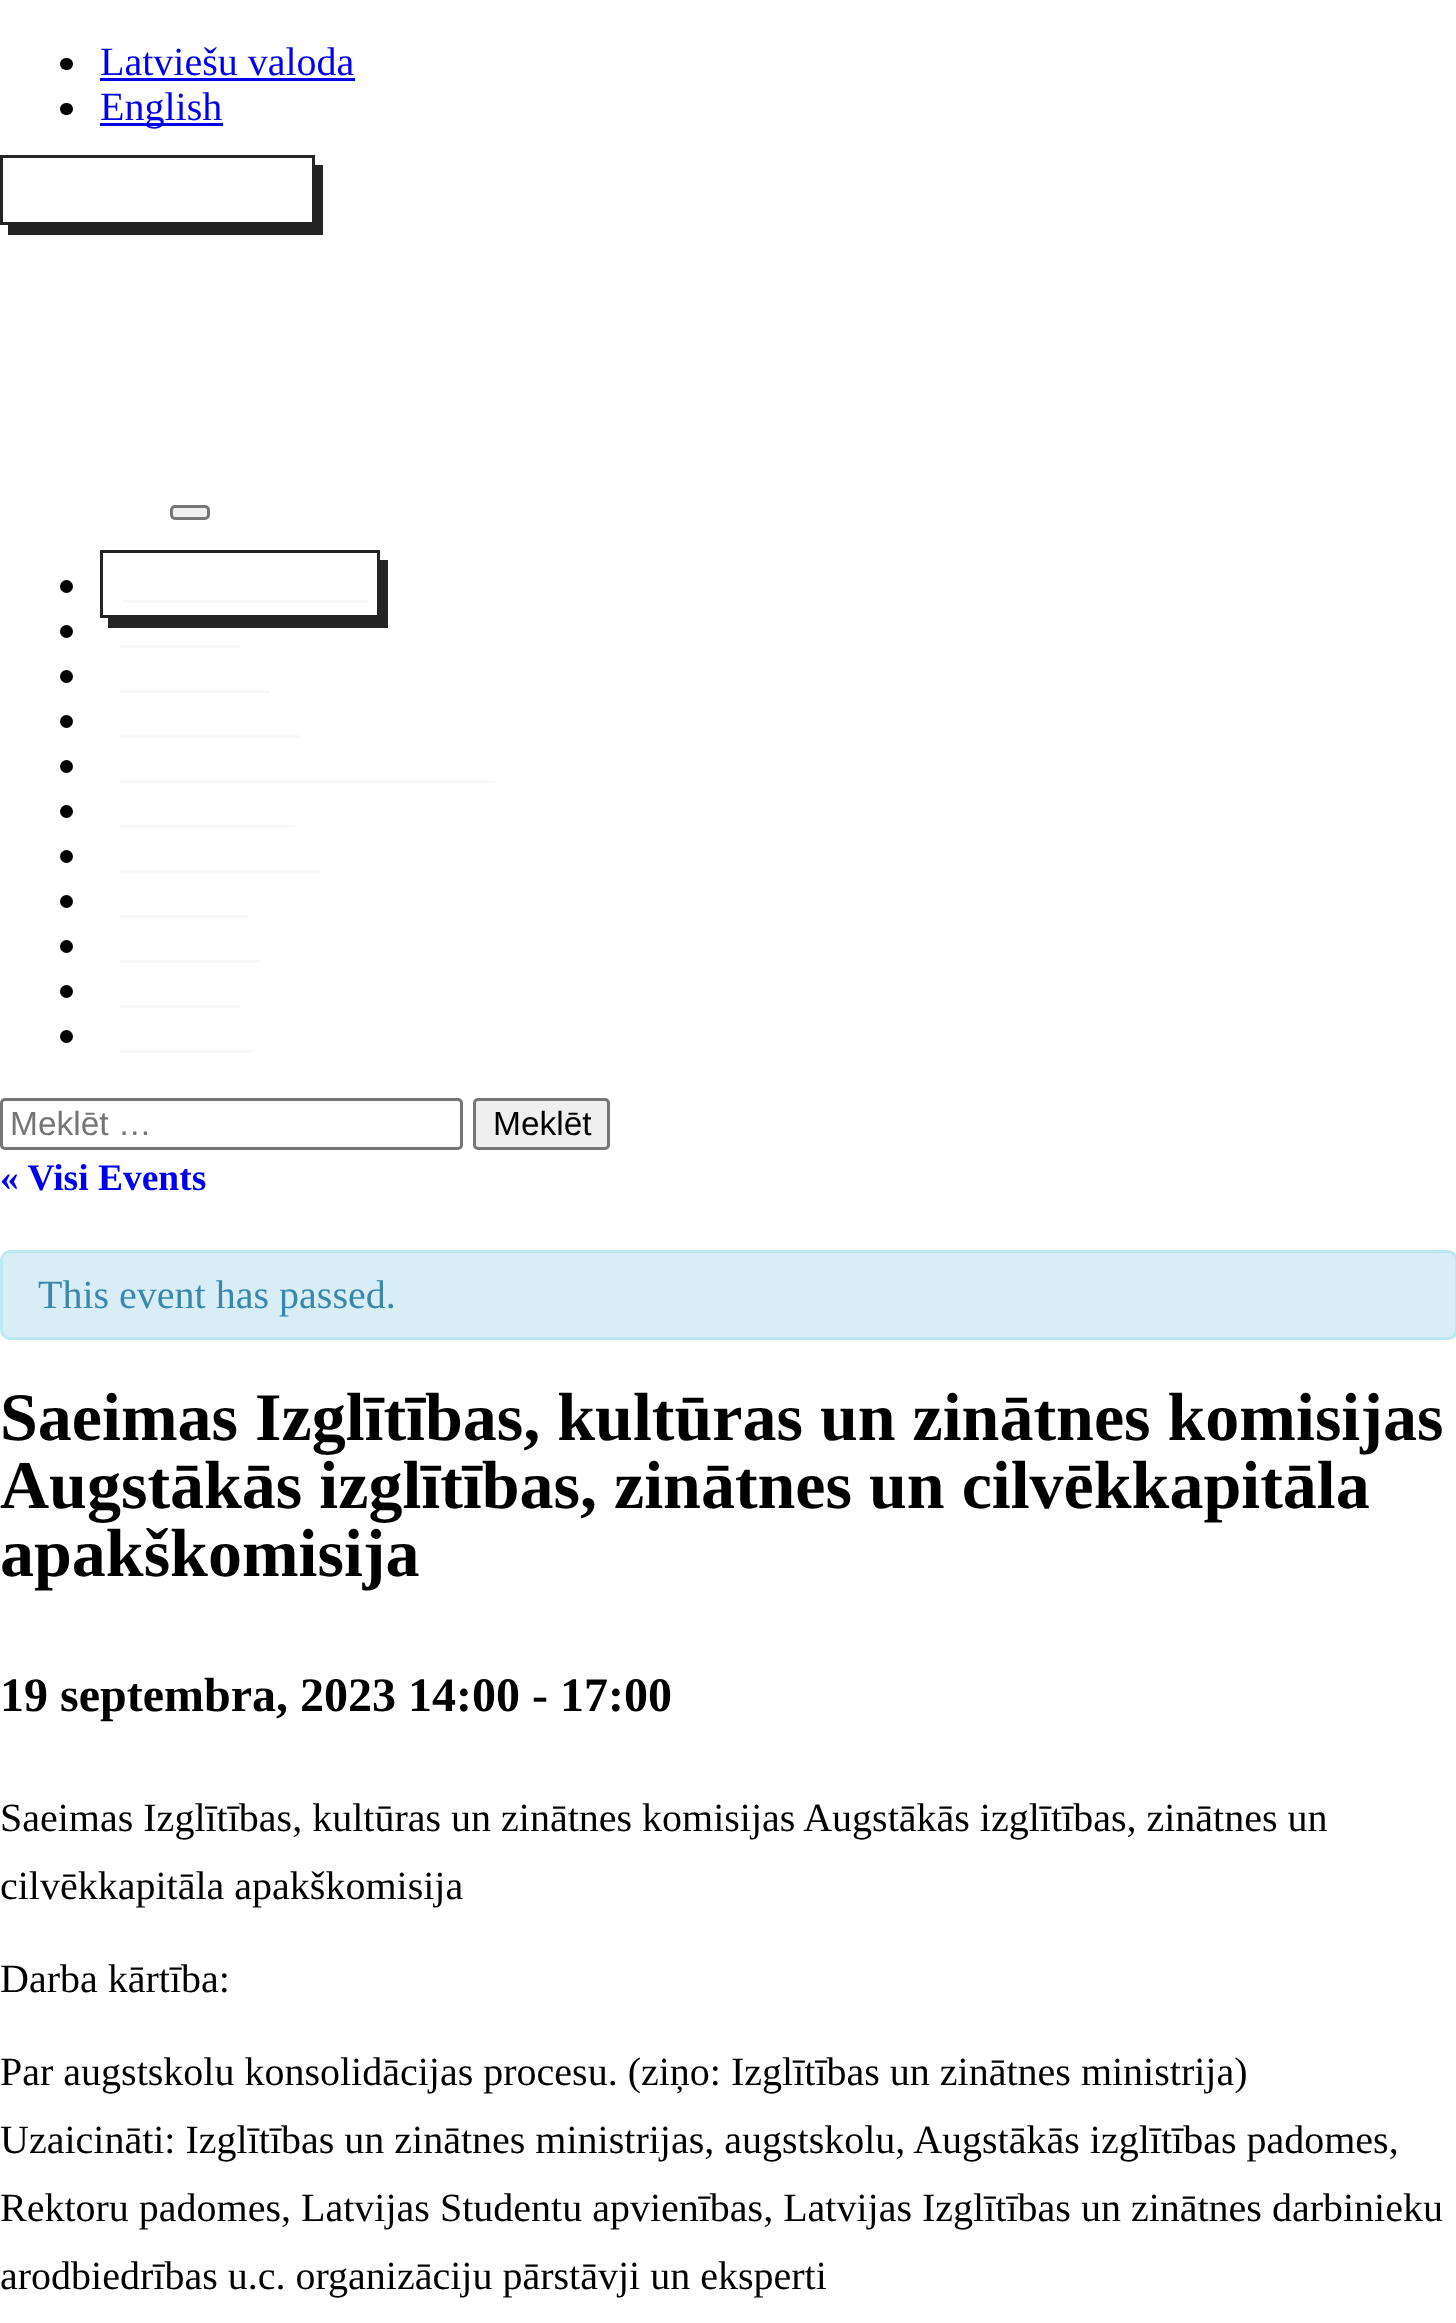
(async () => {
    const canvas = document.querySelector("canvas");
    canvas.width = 1456;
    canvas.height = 2323;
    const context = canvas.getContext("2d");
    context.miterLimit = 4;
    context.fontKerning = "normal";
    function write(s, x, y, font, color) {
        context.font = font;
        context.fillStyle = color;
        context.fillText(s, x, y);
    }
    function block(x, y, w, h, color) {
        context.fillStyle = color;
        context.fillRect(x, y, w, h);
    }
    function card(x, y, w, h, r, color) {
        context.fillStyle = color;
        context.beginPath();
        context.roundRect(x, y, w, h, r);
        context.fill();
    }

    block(0, 0, 1456, 2323, "rgb(255, 255, 255)");
    card(60, 58, 13, 12, 6, "rgb(0, 0, 0)");
    write("Latviešu valoda", 100, 75, "40px Liberation Serif", "rgb(0, 0, 238)");
    block(100, 78, 255, 3, "rgb(0, 0, 238)");
    card(60, 103, 13, 12, 6, "rgb(0, 0, 0)");
    block(100, 123, 123, 3, "rgb(0, 0, 238)");
    write("English", 100, 120, "40px Liberation Serif", "rgb(0, 0, 238)");
    context.fillStyle = "rgb(36, 36, 36)";
    context.beginPath();
    context.moveTo(8, 225);
    context.lineTo(8, 235);
    context.lineTo(323, 235);
    context.lineTo(323, 165);
    context.lineTo(315, 165);
    context.lineTo(315, 225);
    context.closePath();
    context.fill();
    context.strokeStyle = "rgb(36, 36, 36)";
    context.lineWidth = 3;
    context.strokeRect(1.5, 156.5, 312, 67);
    context.fillStyle = "rgb(239, 239, 239)";
    context.beginPath();
    context.roundRect(171.5, 506.5, 37, 12, 3.5);
    context.fill();
    context.strokeStyle = "rgb(118, 118, 118)";
    context.stroke();
    context.fillStyle = "rgb(36, 36, 36)";
    context.beginPath();
    context.moveTo(108, 618);
    context.lineTo(108, 628);
    context.lineTo(388, 628);
    context.lineTo(388, 560);
    context.lineTo(380, 560);
    context.lineTo(380, 618);
    context.closePath();
    context.fill();
    context.strokeStyle = "rgb(36, 36, 36)";
    context.strokeRect(101.5, 551.5, 277, 65);
    context.fillStyle = "rgb(0, 0, 0)";
    context.beginPath();
    context.arc(66.5, 586.5, 6.5, 0, Math.PI * 2);
    context.fill();
    block(123, 600, 245, 3, "rgb(248, 248, 248)");
    context.fillStyle = "rgb(0, 0, 0)";
    context.beginPath();
    context.arc(66.5, 631.5, 6.5, 0, Math.PI * 2);
    context.fill();
    block(120, 645, 120, 3, "rgb(248, 248, 248)");
    context.fillStyle = "rgb(0, 0, 0)";
    context.beginPath();
    context.arc(66.5, 676.5, 6.5, 0, Math.PI * 2);
    context.fill();
    block(120, 690, 150, 3, "rgb(248, 248, 248)");
    context.fillStyle = "rgb(0, 0, 0)";
    context.beginPath();
    context.arc(66.5, 721.5, 6.5, 0, Math.PI * 2);
    context.fill();
    block(120, 735, 180, 3, "rgb(248, 248, 248)");
    context.fillStyle = "rgb(0, 0, 0)";
    context.beginPath();
    context.arc(66.5, 766.5, 6.5, 0, Math.PI * 2);
    context.fill();
    block(120, 780, 375, 3, "rgb(248, 248, 248)");
    context.fillStyle = "rgb(0, 0, 0)";
    context.beginPath();
    context.arc(66.5, 811.5, 6.5, 0, Math.PI * 2);
    context.fill();
    block(120, 825, 175, 3, "rgb(248, 248, 248)");
    context.fillStyle = "rgb(0, 0, 0)";
    context.beginPath();
    context.arc(66.5, 856.5, 6.5, 0, Math.PI * 2);
    context.fill();
    block(120, 870, 200, 3, "rgb(248, 248, 248)");
    context.fillStyle = "rgb(0, 0, 0)";
    context.beginPath();
    context.arc(66.5, 901.5, 6.5, 0, Math.PI * 2);
    context.fill();
    block(120, 915, 128, 3, "rgb(248, 248, 248)");
    context.fillStyle = "rgb(0, 0, 0)";
    context.beginPath();
    context.arc(66.5, 946.5, 6.5, 0, Math.PI * 2);
    context.fill();
    block(120, 960, 140, 3, "rgb(248, 248, 248)");
    context.fillStyle = "rgb(0, 0, 0)";
    context.beginPath();
    context.arc(66.5, 991.5, 6.5, 0, Math.PI * 2);
    context.fill();
    block(120, 1005, 120, 3, "rgb(248, 248, 248)");
    context.fillStyle = "rgb(0, 0, 0)";
    context.beginPath();
    context.arc(66.5, 1036.5, 6.5, 0, Math.PI * 2);
    context.fill();
    block(120, 1050, 133, 3, "rgb(248, 248, 248)");
    context.beginPath();
    context.roundRect(1.5, 1099.5, 460, 49, 3.5);
    context.strokeStyle = "rgb(118, 118, 118)";
    context.stroke();
    write("Meklēt …", 10, 1135, "33.5px Liberation Sans", "rgb(117, 117, 117)");
    context.fillStyle = "rgb(239, 239, 239)";
    context.beginPath();
    context.roundRect(474.5, 1099.5, 134, 49, 3.5);
    context.fill();
    context.stroke();
    write("Meklēt", 493, 1135, "33.5px Liberation Sans", "rgb(0, 0, 0)");
    write("« Visi Events", 0, 1190, "bold 37.5px Liberation Serif", "rgb(0, 0, 238)");
    context.fillStyle = "rgb(217, 237, 247)";
    context.beginPath();
    context.roundRect(1.5, 1251.5, 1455, 87, 8.5);
    context.fill();
    context.strokeStyle = "rgb(188, 232, 241)";
    context.stroke();
    write("This event has passed.", 38, 1308, "40px Liberation Serif", "rgb(58, 135, 173)");
    write("Saeimas Izglītības, kultūras un zinātnes komisijas", 0, 1440, "bold 68px Liberation Serif", "rgb(0, 0, 0)");
    write("Augstākās izglītības, zinātnes un cilvēkkapitāla", 0, 1508, "bold 68px Liberation Serif", "rgb(0, 0, 0)");
    write("apakškomisija", 0, 1576, "bold 68px Liberation Serif", "rgb(0, 0, 0)");
    write("19 septembra, 2023 14:00 - 17:00", 0, 1711, "bold 48px Liberation Serif", "rgb(0, 0, 0)");
    write("Saeimas Izglītības, kultūras un zinātnes komisijas Augstākās izglītības, zinātnes un", 0, 1831, "40px Liberation Serif", "rgb(0, 0, 0)");
    write("cilvēkkapitāla apakškomisija", 0, 1899, "40px Liberation Serif", "rgb(0, 0, 0)");
    write("Darba kārtība:", 0, 1992, "40px Liberation Serif", "rgb(0, 0, 0)");
    write("Par augstskolu konsolidācijas procesu. (ziņo: Izglītības un zinātnes ministrija)", 0, 2085, "40px Liberation Serif", "rgb(0, 0, 0)");
    write("Uzaicināti: Izglītības un zinātnes ministrijas, augstskolu, Augstākās izglītības padomes,", 0, 2153, "40px Liberation Serif", "rgb(0, 0, 0)");
    write("Rektoru padomes, Latvijas Studentu apvienības, Latvijas Izglītības un zinātnes darbinieku", 0, 2221, "40px Liberation Serif", "rgb(0, 0, 0)");
    write("arodbiedrības u.c. organizāciju pārstāvji un eksperti", 0, 2289, "40px Liberation Serif", "rgb(0, 0, 0)");
})();
